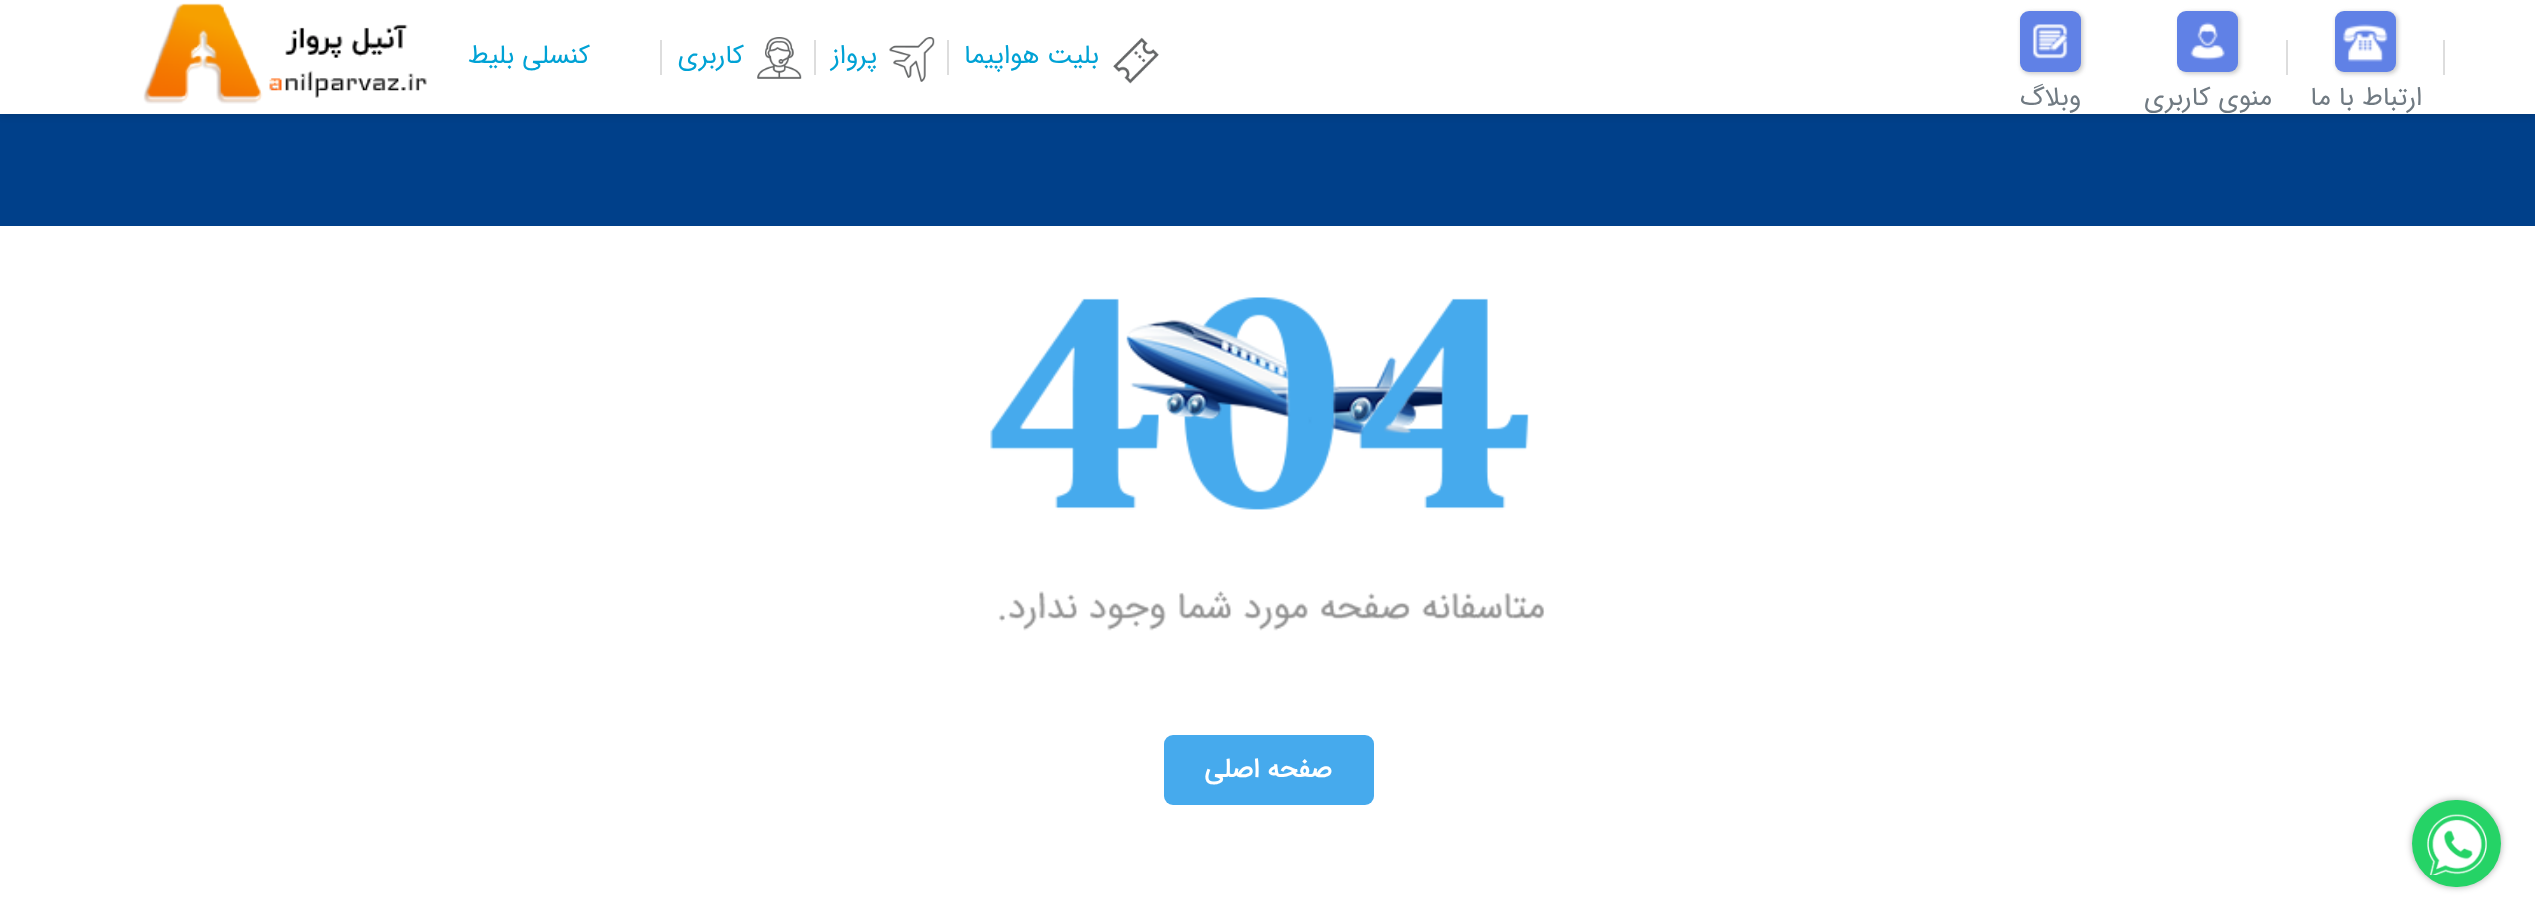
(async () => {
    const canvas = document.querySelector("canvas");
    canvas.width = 2535;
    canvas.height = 922;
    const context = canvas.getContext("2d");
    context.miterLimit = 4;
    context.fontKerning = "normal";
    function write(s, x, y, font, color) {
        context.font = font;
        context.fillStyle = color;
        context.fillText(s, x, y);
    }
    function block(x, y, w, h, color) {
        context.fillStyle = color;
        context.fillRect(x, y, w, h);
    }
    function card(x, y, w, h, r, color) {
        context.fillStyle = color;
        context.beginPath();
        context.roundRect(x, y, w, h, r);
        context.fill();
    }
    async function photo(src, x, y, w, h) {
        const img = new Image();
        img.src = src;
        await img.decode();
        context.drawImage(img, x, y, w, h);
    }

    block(0, 0, 2535, 922, "rgb(255, 255, 255)");
    block(0, 114, 2535, 112, "rgb(0, 64, 138)");
    context.fillStyle = "rgba(0, 0, 0, 0.2)";
    context.filter = "blur(4.5px)";
    context.beginPath();
    context.rect(0, 0, 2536, 114);
    context.fill();
    context.filter = "none";
    block(0, 0, 2535, 114, "rgb(255, 255, 255)");
    await photo("media/1.png", 1113, 37, 46, 47);
    context.direction = "rtl";
    write("بلیت هواپیما", 1099, 63, "26.25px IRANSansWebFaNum", "rgb(0, 162, 213)");
    block(947, 40, 2, 35, "rgb(221, 221, 221)");
    await photo("media/2.png", 889, 37, 46, 45);
    write("پرواز", 877, 63, "26.25px IRANSansWebFaNum", "rgb(0, 162, 213)");
    block(814, 40, 2, 35, "rgb(221, 221, 221)");
    await photo("media/3.png", 757, 37, 45, 42);
    write("کاربری", 744, 63, "26.25px IRANSansWebFaNum", "rgb(0, 162, 213)");
    block(660, 40, 2, 35, "rgb(221, 221, 221)");
    write("کنسلی بلیط", 590, 63, "26.25px IRANSansWebFaNum", "rgb(0, 162, 213)");
    await photo("media/4.png", 143, 3, 284, 101);
    block(2443, 40, 2, 35, "rgb(221, 221, 221)");
    context.fillStyle = "rgb(204, 204, 204)";
    context.filter = "blur(2px)";
    context.beginPath();
    context.roundRect(2336, 12, 62, 62, 9);
    context.fill();
    context.filter = "none";
    card(2335, 11, 61, 61, 9, "rgb(96, 129, 230)");
    await photo("media/5.png", 2342, 24, 46, 38);
    write("ارتباط با ما", 2422, 105, "26.25px IRANSansWebFaNum", "rgb(112, 122, 130)");
    block(2286, 40, 2, 35, "rgb(221, 221, 221)");
    context.fillStyle = "rgb(204, 204, 204)";
    context.filter = "blur(2px)";
    context.beginPath();
    context.roundRect(2179, 12, 61, 62, 9);
    context.fill();
    context.filter = "none";
    card(2177, 11, 61, 61, 9, "rgb(96, 129, 230)");
    await photo("media/6.png", 2190, 22, 35, 38);
    write("منوی کاربری", 2272, 105, "26.25px IRANSansWebFaNum", "rgb(112, 122, 130)");
    context.fillStyle = "rgb(204, 204, 204)";
    context.filter = "blur(2px)";
    context.beginPath();
    context.roundRect(2021, 12, 62, 62, 9);
    context.fill();
    context.filter = "none";
    card(2020, 11, 61, 61, 9, "rgb(96, 129, 230)");
    await photo("media/7.png", 2032, 24, 36, 35);
    write("وبلاگ", 2081, 105, "26.25px IRANSansWebFaNum", "rgb(112, 122, 130)");
    await photo("media/8.png", 990, 297, 555, 334);
    card(1164, 735, 210, 70, 9, "rgb(70, 170, 237)");
    write("صفحه اصلی", 1332, 777, "bold 26.25px IRANSansWebFaNum", "rgb(255, 255, 255)");
    context.fillStyle = "rgba(0, 0, 0, 0.32)";
    context.filter = "blur(3.5px)";
    context.beginPath();
    context.roundRect(2412, 800, 89, 87, 43.5);
    context.fill();
    context.filter = "none";
    card(2412, 800, 89, 87, 43.5, "rgb(37, 211, 102)");
    await photo("media/9.png", 2427, 814, 60, 61);
})();
